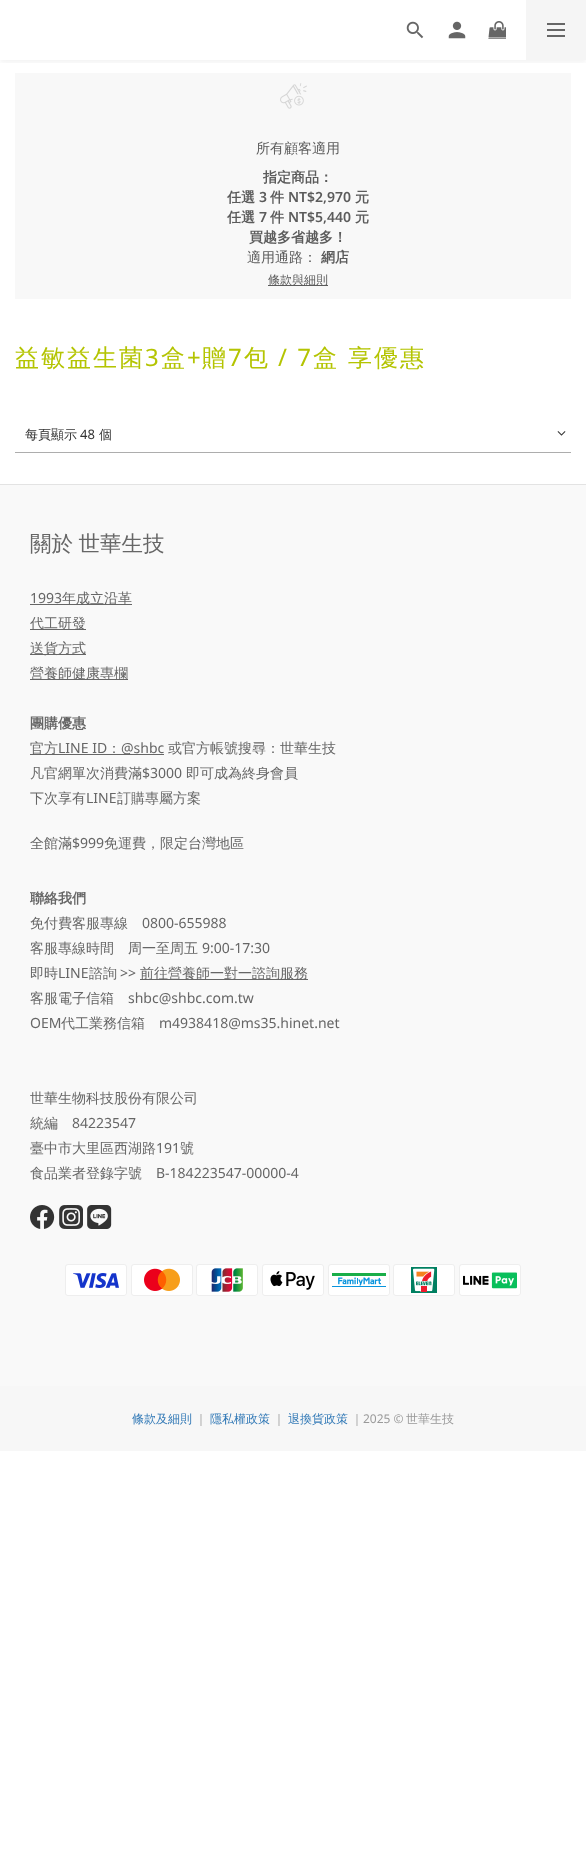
(async () => {
    const canvas = document.querySelector("canvas");
    canvas.width = 586;
    canvas.height = 1861;
    const context = canvas.getContext("2d");
    context.miterLimit = 4;
    context.fontKerning = "normal";
    function write(s, x, y, font, color) {
        context.font = font;
        context.fillStyle = color;
        context.fillText(s, x, y);
    }
    function block(x, y, w, h, color) {
        context.fillStyle = color;
        context.fillRect(x, y, w, h);
    }
    async function photo(src, x, y, w, h) {
        const img = new Image();
        img.src = src;
        await img.decode();
        context.drawImage(img, x, y, w, h);
    }

    block(0, 0, 586, 1861, "rgb(255, 255, 255)");
    context.save();
    context.beginPath();
    context.rect(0, 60, 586, 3);
    context.clip();
    context.fillStyle = "rgba(0, 0, 0, 0.06)";
    context.filter = "blur(3px)";
    context.beginPath();
    context.rect(0, 2, 586, 60);
    context.fill();
    context.filter = "none";
    context.restore();
    await photo("media/1.png", 406, 21, 18, 18);
    await photo("media/2.png", 448, 21, 18, 18);
    await photo("media/3.png", 488, 21, 18, 18);
    block(526, 0, 60, 60, "rgb(245, 245, 245)");
    block(547, 29, 18, 2, "rgb(102, 102, 102)");
    block(547, 23, 18, 2, "rgb(102, 102, 102)");
    block(547, 35, 18, 2, "rgb(102, 102, 102)");
    block(15, 73, 556, 226, "rgb(248, 248, 248)");
    await photo("media/4.png", 280, 83, 27, 26);
    write("所有顧客適用", 256, 153, "500 14px WenQuanYi Zen Hei", "rgb(91, 91, 91)");
    write("指定商品：", 263, 182, "bold 14px WenQuanYi Zen Hei", "rgb(91, 91, 91)");
    write("任選", 227, 202, "bold 14px WenQuanYi Zen Hei", "rgb(91, 91, 91)");
    write("3", 259, 202, "600 14px Noto Sans", "rgb(91, 91, 91)");
    write("件", 270, 202, "bold 14px WenQuanYi Zen Hei", "rgb(91, 91, 91)");
    write("NT$2,970", 288, 202, "600 14px Noto Sans", "rgb(91, 91, 91)");
    write("元", 355, 202, "bold 14px WenQuanYi Zen Hei", "rgb(91, 91, 91)");
    write("任選", 227, 222, "bold 14px WenQuanYi Zen Hei", "rgb(91, 91, 91)");
    write("7", 259, 222, "600 14px Noto Sans", "rgb(91, 91, 91)");
    write("件", 270, 222, "bold 14px WenQuanYi Zen Hei", "rgb(91, 91, 91)");
    write("NT$5,440", 288, 222, "600 14px Noto Sans", "rgb(91, 91, 91)");
    write("元", 355, 222, "bold 14px WenQuanYi Zen Hei", "rgb(91, 91, 91)");
    write("買越多省越多！", 249, 242, "bold 14px WenQuanYi Zen Hei", "rgb(91, 91, 91)");
    write("適用通路：", 247, 262, "500 14px WenQuanYi Zen Hei", "rgb(91, 91, 91)");
    write("網店", 321, 262, "bold 14px WenQuanYi Zen Hei", "rgb(91, 91, 91)");
    block(268, 285, 60, 1, "rgb(91, 91, 91)");
    write("條款與細則", 268, 284, "500 12px WenQuanYi Zen Hei", "rgb(91, 91, 91)");
    context.letterSpacing = "2px";
    write("益敏益生菌", 15, 366, "500 24px WenQuanYi Zen Hei", "rgb(180, 196, 2)");
    write("3", 145, 366, "24px Noto Sans", "rgb(180, 196, 2)");
    write("盒", 161, 366, "500 24px WenQuanYi Zen Hei", "rgb(180, 196, 2)");
    write("+", 187, 366, "24px Noto Sans", "rgb(180, 196, 2)");
    write("贈", 202, 366, "500 24px WenQuanYi Zen Hei", "rgb(180, 196, 2)");
    write("7", 228, 366, "24px Noto Sans", "rgb(180, 196, 2)");
    write("包", 244, 366, "500 24px WenQuanYi Zen Hei", "rgb(180, 196, 2)");
    write("/ 7", 278, 366, "24px Noto Sans", "rgb(180, 196, 2)");
    write("盒", 313, 366, "500 24px WenQuanYi Zen Hei", "rgb(180, 196, 2)");
    write("享優惠", 348, 366, "500 24px WenQuanYi Zen Hei", "rgb(180, 196, 2)");
    context.letterSpacing = "0px";
    write("每頁顯示", 25, 439, "500 13px WenQuanYi Zen Hei", "rgb(51, 51, 51)");
    write("48", 80, 439, "13px Noto Sans", "rgb(51, 51, 51)");
    write("個", 99, 439, "500 13px WenQuanYi Zen Hei", "rgb(51, 51, 51)");
    block(15, 452, 556, 1, "rgb(173, 173, 173)");
    await photo("media/5.png", 557, 431, 9, 5);
    block(0, 485, 586, 901, "rgb(249, 249, 249)");
    block(0, 484, 586, 1, "rgb(227, 227, 227)");
    context.wordSpacing = "-1px";
    write("關於 世華生技", 30, 551, "500 21.5px WenQuanYi Zen Hei", "rgb(102, 102, 102)");
    context.wordSpacing = "0px";
    write("1993", 30, 603, "14px Noto Sans", "rgb(102, 102, 102)");
    block(30, 604, 102, 1, "rgb(102, 102, 102)");
    write("年成立沿革", 62, 603, "500 14px WenQuanYi Zen Hei", "rgb(102, 102, 102)");
    block(30, 629, 56, 1, "rgb(102, 102, 102)");
    write("代工研發", 30, 628, "500 14px WenQuanYi Zen Hei", "rgb(102, 102, 102)");
    block(30, 654, 56, 1, "rgb(102, 102, 102)");
    write("送貨方式", 30, 653, "500 14px WenQuanYi Zen Hei", "rgb(102, 102, 102)");
    block(30, 679, 98, 1, "rgb(102, 102, 102)");
    write("營養師健康專欄", 30, 678, "500 14px WenQuanYi Zen Hei", "rgb(102, 102, 102)");
    write("團購優惠", 30, 728, "bold 14px WenQuanYi Zen Hei", "rgb(102, 102, 102)");
    block(30, 754, 134, 1, "rgb(102, 102, 102)");
    write("官方", 30, 753, "500 14px WenQuanYi Zen Hei", "rgb(102, 102, 102)");
    write("LINE ID", 58, 753, "14px Noto Sans", "rgb(102, 102, 102)");
    write("：", 107, 753, "500 14px WenQuanYi Zen Hei", "rgb(102, 102, 102)");
    write("@shbc", 121, 753, "14px Noto Sans", "rgb(102, 102, 102)");
    write("或官方帳號搜尋：世華生技", 168, 753, "500 14px WenQuanYi Zen Hei", "rgb(102, 102, 102)");
    write("凡官網單次消費滿", 30, 778, "500 14px WenQuanYi Zen Hei", "rgb(102, 102, 102)");
    write("$3000", 142, 778, "14px Noto Sans", "rgb(102, 102, 102)");
    write("即可成為終身會員", 186, 778, "500 14px WenQuanYi Zen Hei", "rgb(102, 102, 102)");
    write("下次享有", 30, 803, "500 14px WenQuanYi Zen Hei", "rgb(102, 102, 102)");
    write("LINE", 86, 803, "14px Noto Sans", "rgb(102, 102, 102)");
    write("訂購專屬方案", 117, 803, "500 14px WenQuanYi Zen Hei", "rgb(102, 102, 102)");
    write("全館滿", 30, 848, "500 14px WenQuanYi Zen Hei", "rgb(102, 102, 102)");
    write("$999", 72, 848, "14px Noto Sans", "rgb(102, 102, 102)");
    write("免運費，限定台灣地區", 104, 848, "500 14px WenQuanYi Zen Hei", "rgb(102, 102, 102)");
    write("聯絡我們", 30, 903, "bold 14px WenQuanYi Zen Hei", "rgb(102, 102, 102)");
    write("免付費客服專線", 30, 928, "500 14px WenQuanYi Zen Hei", "rgb(102, 102, 102)");
    write("0800-655988", 142, 928, "14px Noto Sans", "rgb(102, 102, 102)");
    write("客服專線時間　周一至周五", 30, 953, "500 14px WenQuanYi Zen Hei", "rgb(102, 102, 102)");
    write("9:00-17:30", 202, 953, "14px Noto Sans", "rgb(102, 102, 102)");
    write("即時", 30, 978, "500 14px WenQuanYi Zen Hei", "rgb(102, 102, 102)");
    write("LINE", 58, 978, "14px Noto Sans", "rgb(102, 102, 102)");
    write("諮詢", 89, 978, "500 14px WenQuanYi Zen Hei", "rgb(102, 102, 102)");
    write(">>", 120, 978, "14px Noto Sans", "rgb(102, 102, 102)");
    block(140, 979, 168, 1, "rgb(102, 102, 102)");
    write("前往營養師一對一諮詢服務", 140, 978, "500 14px WenQuanYi Zen Hei", "rgb(102, 102, 102)");
    write("客服電子信箱", 30, 1003, "500 14px WenQuanYi Zen Hei", "rgb(102, 102, 102)");
    write("shbc@shbc.com.tw", 128, 1003, "14px Noto Sans", "rgb(102, 102, 102)");
    write("OEM", 30, 1028, "14px Noto Sans", "rgb(102, 102, 102)");
    write("代工業務信箱", 61, 1028, "500 14px WenQuanYi Zen Hei", "rgb(102, 102, 102)");
    write("m4938418@ms35.hinet.net", 159, 1028, "14px Noto Sans", "rgb(102, 102, 102)");
    write("世華生物科技股份有限公司", 30, 1103, "500 14px WenQuanYi Zen Hei", "rgb(102, 102, 102)");
    write("統編", 30, 1128, "500 14px WenQuanYi Zen Hei", "rgb(102, 102, 102)");
    write("84223547", 72, 1128, "14px Noto Sans", "rgb(102, 102, 102)");
    write("臺中市大里區西湖路", 30, 1153, "500 14px WenQuanYi Zen Hei", "rgb(102, 102, 102)");
    write("191", 156, 1153, "14px Noto Sans", "rgb(102, 102, 102)");
    write("號", 180, 1153, "500 14px WenQuanYi Zen Hei", "rgb(102, 102, 102)");
    write("食品業者登錄字號", 30, 1178, "500 14px WenQuanYi Zen Hei", "rgb(102, 102, 102)");
    write("B-184223547-00000-4", 156, 1178, "14px Noto Sans", "rgb(102, 102, 102)");
    await photo("media/6.png", 30, 1205, 25, 24);
    await photo("media/7.png", 59, 1205, 24, 24);
    await photo("media/8.png", 87, 1205, 25, 24);
    await photo("media/9.png", 65, 1264, 62, 32);
    await photo("media/10.png", 131, 1264, 62, 32);
    await photo("media/11.png", 196, 1264, 62, 32);
    await photo("media/12.png", 262, 1264, 62, 32);
    await photo("media/13.png", 328, 1264, 62, 32);
    await photo("media/14.png", 393, 1264, 62, 32);
    await photo("media/15.png", 459, 1264, 62, 32);
    block(0, 1386, 586, 65, "rgb(247, 247, 247)");
    write("條款及細則", 132, 1423, "500 12px WenQuanYi Zen Hei", "rgb(51, 122, 183)");
    write("｜", 195, 1423, "500 12px WenQuanYi Zen Hei", "rgb(153, 153, 153)");
    write("隱私權政策", 210, 1423, "500 12px WenQuanYi Zen Hei", "rgb(51, 122, 183)");
    write("｜", 273, 1423, "500 12px WenQuanYi Zen Hei", "rgb(153, 153, 153)");
    write("退換貨政策", 288, 1423, "500 12px WenQuanYi Zen Hei", "rgb(51, 122, 183)");
    write("｜", 351, 1423, "500 12px WenQuanYi Zen Hei", "rgb(153, 153, 153)");
    write("2025 ©", 363, 1423, "12px Noto Sans", "rgb(153, 153, 153)");
    write("世華生技", 406, 1423, "500 12px WenQuanYi Zen Hei", "rgb(153, 153, 153)");
})();
